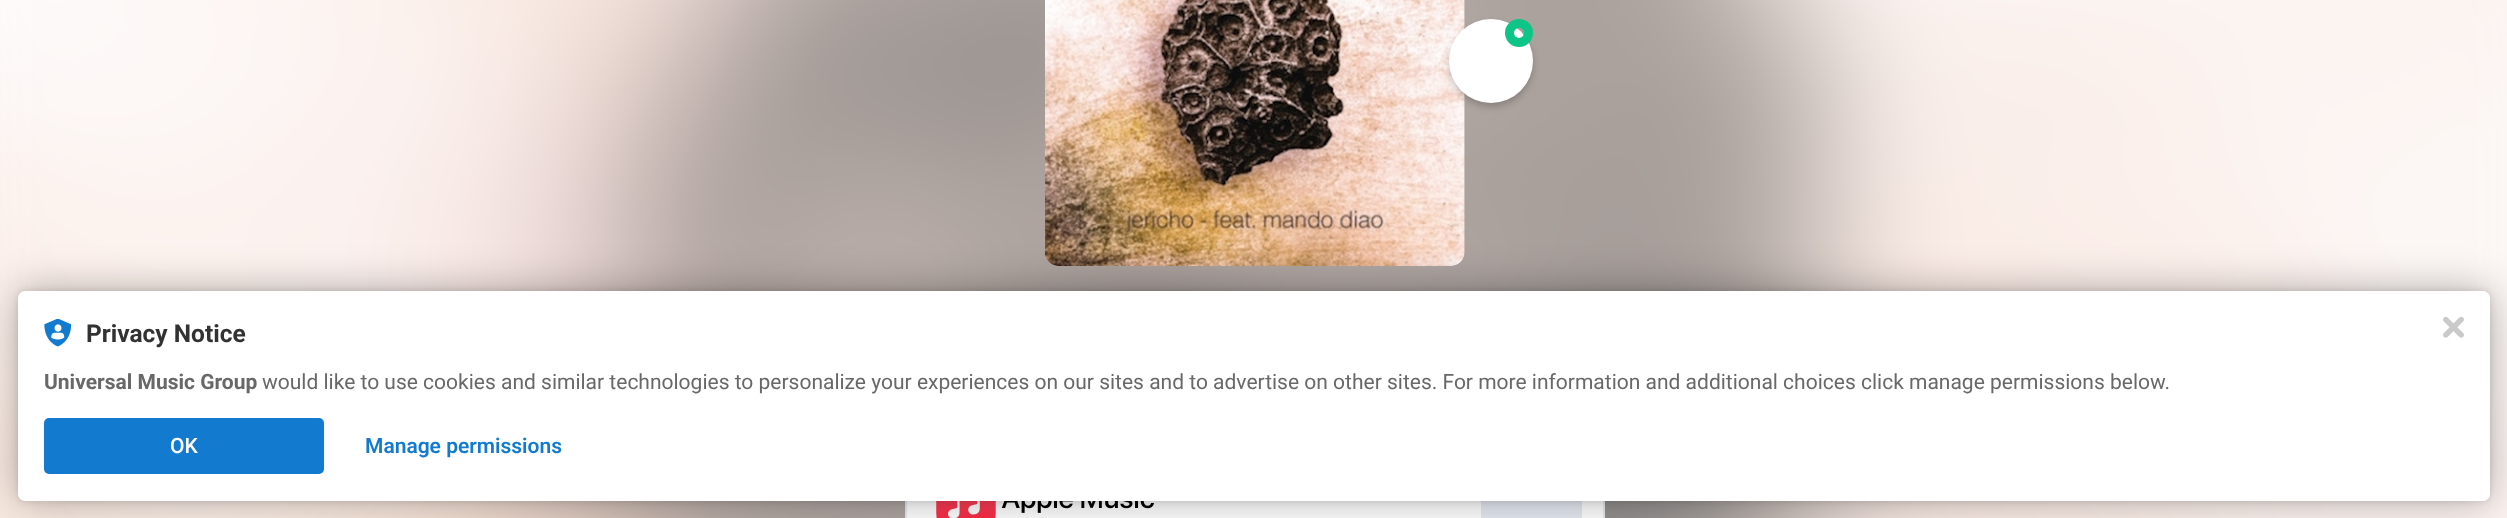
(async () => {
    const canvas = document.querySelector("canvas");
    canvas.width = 2507;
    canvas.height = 518;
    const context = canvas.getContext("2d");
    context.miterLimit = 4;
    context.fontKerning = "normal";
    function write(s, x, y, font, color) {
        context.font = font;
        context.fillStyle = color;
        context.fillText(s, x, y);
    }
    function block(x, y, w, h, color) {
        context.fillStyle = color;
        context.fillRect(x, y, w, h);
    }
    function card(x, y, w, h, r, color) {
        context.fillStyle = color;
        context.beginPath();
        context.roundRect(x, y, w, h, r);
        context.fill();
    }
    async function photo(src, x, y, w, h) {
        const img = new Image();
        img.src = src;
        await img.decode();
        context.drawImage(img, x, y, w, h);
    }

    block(0, 0, 2507, 518, "rgb(255, 255, 255)");
    await photo("media/1.png", 0, 0, 2507, 518);
    await photo("media/2.png", 1045, 0, 420, 266);
    context.strokeStyle = "rgb(230, 234, 242)";
    context.lineWidth = 2;
    context.strokeRect(906, 435, 698, 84);
    block(907, 501, 696, 17, "rgb(255, 255, 255)");
    await photo("media/3.png", 936, 501, 218, 17);
    block(1481, 501, 101, 17, "rgb(230, 234, 242)");
    context.fillStyle = "rgba(0, 0, 0, 0.2)";
    context.filter = "blur(3.5px)";
    context.beginPath();
    context.roundRect(1449, 23, 84, 84, 42);
    context.fill();
    context.filter = "none";
    context.fillStyle = "rgb(255, 255, 255)";
    context.beginPath();
    context.arc(1491, 61, 42, 0, Math.PI * 2);
    context.fill();
    context.beginPath();
    context.arc(1519, 33, 9.5, 0, Math.PI * 2);
    context.strokeStyle = "rgb(13, 197, 135)";
    context.lineWidth = 9;
    context.stroke();
    context.fillStyle = "rgba(0, 0, 0, 0.12)";
    context.filter = "blur(3.5px)";
    context.beginPath();
    context.roundRect(18, 291, 2472, 210, 7);
    context.fill();
    context.filter = "none";
    context.fillStyle = "rgba(0, 0, 0, 0.3)";
    context.filter = "blur(21px)";
    context.beginPath();
    context.roundRect(18, 291, 2472, 210, 7);
    context.fill();
    context.filter = "none";
    card(18, 291, 2472, 210, 7, "rgb(255, 255, 255)");
    await photo("media/4.png", 44, 319, 28, 28);
    write("Privacy Notice", 86, 342, "bold 24.5px Roboto", "rgb(50, 50, 50)");
    write("Universal Music Group", 44, 389, "bold 21px Roboto", "rgb(104, 104, 104)");
    write("would like to use cookies and similar technologies to personalize your experiences on our sites and to advertise on other sites. For more information and additional choices click manage permissions below.", 262, 389, "21px Roboto", "rgb(104, 104, 104)");
    card(44, 418, 280, 56, 5, "rgb(19, 123, 207)");
    write("OK", 170, 453, "500 21px Roboto", "rgb(255, 255, 255)");
    write("Manage permissions", 365, 453, "600 21px Roboto", "rgb(19, 123, 207)");
    await photo("media/5.png", 2443, 317, 21, 21);
})();
